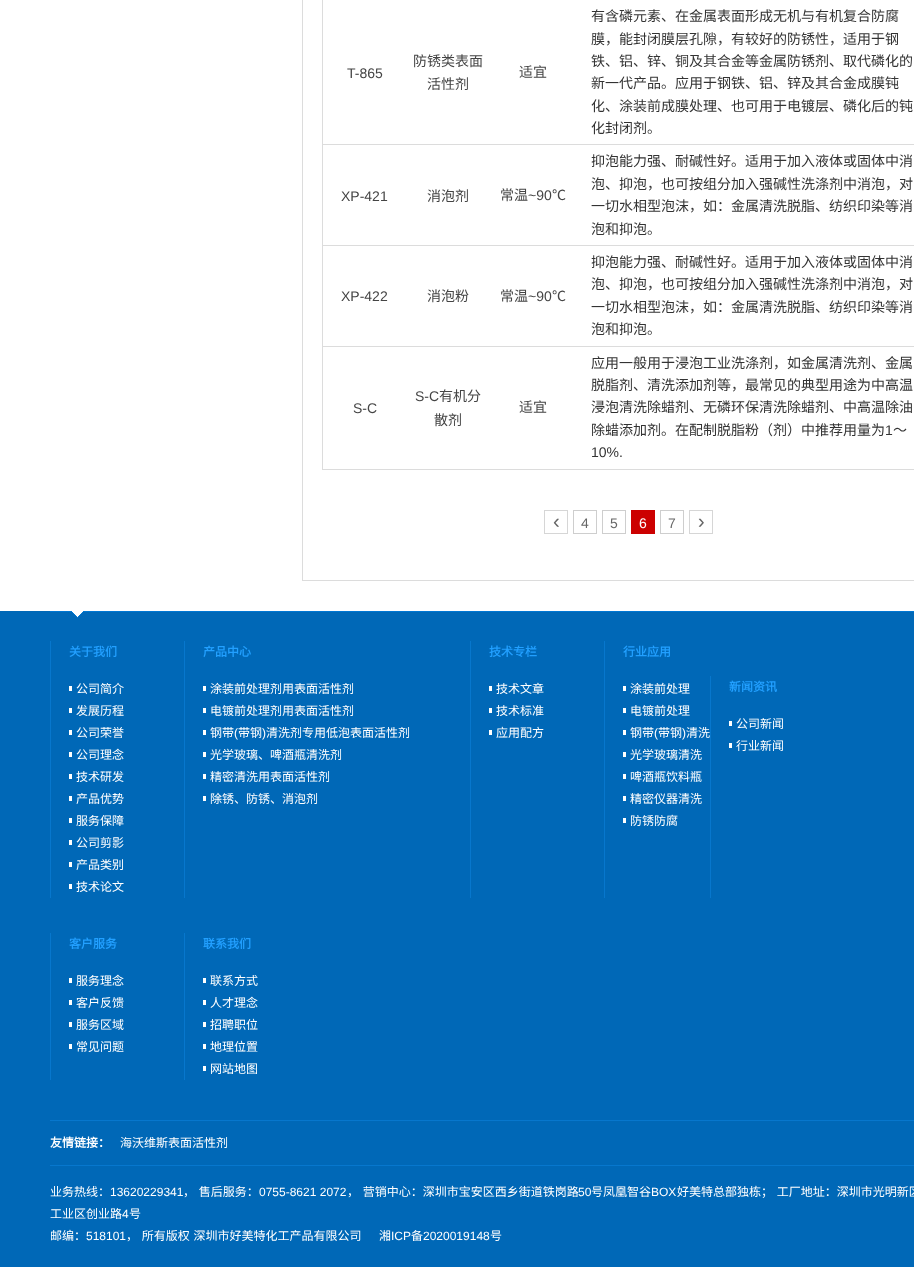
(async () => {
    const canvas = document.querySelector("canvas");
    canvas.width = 914;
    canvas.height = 1267;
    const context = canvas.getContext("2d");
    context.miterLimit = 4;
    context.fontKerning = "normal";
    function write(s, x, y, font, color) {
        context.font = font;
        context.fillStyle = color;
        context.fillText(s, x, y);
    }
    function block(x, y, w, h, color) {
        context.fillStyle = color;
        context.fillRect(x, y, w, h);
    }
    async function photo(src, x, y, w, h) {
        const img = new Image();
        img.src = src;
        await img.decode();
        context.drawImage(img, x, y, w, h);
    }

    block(0, 0, 914, 1267, "rgb(255, 255, 255)");
    context.strokeStyle = "rgb(220, 220, 220)";
    context.strokeRect(302.5, -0.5, 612, 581);
    block(322, 0, 592, 470, "rgb(220, 220, 220)");
    block(323, 0, 591, 144, "rgb(255, 255, 255)");
    write("T-865", 347, 78, "14px Liberation Sans", "rgb(68, 68, 68)");
    write("防锈类表面", 413, 66, "14px Noto Sans CJK SC", "rgb(68, 68, 68)");
    write("活性剂", 427, 89, "14px Noto Sans CJK SC", "rgb(68, 68, 68)");
    write("适宜", 519, 77, "14px Noto Sans CJK SC", "rgb(68, 68, 68)");
    write("有含磷元素、在金属表面形成无机与有机复合防腐", 591, 21, "14px Noto Sans CJK SC", "rgb(51, 51, 51)");
    write("膜，能封闭膜层孔隙，有较好的防锈性，适用于钢", 591, 44, "14px Noto Sans CJK SC", "rgb(51, 51, 51)");
    write("铁、铝、锌、铜及其合金等金属防锈剂、取代磷化的", 591, 66, "14px Noto Sans CJK SC", "rgb(51, 51, 51)");
    write("新一代产品。应用于钢铁、铝、锌及其合金成膜钝", 591, 88, "14px Noto Sans CJK SC", "rgb(51, 51, 51)");
    write("化、涂装前成膜处理、也可用于电镀层、磷化后的钝", 591, 111, "14px Noto Sans CJK SC", "rgb(51, 51, 51)");
    write("化封闭剂。", 591, 133, "14px Noto Sans CJK SC", "rgb(51, 51, 51)");
    block(323, 145, 591, 100, "rgb(255, 255, 255)");
    write("XP-421", 341, 201, "14px Liberation Sans", "rgb(68, 68, 68)");
    write("消泡剂", 427, 201, "14px Noto Sans CJK SC", "rgb(68, 68, 68)");
    write("常温", 500, 200, "14px Noto Sans CJK SC", "rgb(68, 68, 68)");
    write("~90", 528, 200, "14px Liberation Sans", "rgb(68, 68, 68)");
    write("℃", 552, 200, "14px Noto Sans CJK SC", "rgb(68, 68, 68)");
    write("抑泡能力强、耐碱性好。适用于加入液体或固体中消", 591, 166, "14px Noto Sans CJK SC", "rgb(51, 51, 51)");
    write("泡、抑泡，也可按组分加入强碱性洗涤剂中消泡，对", 591, 189, "14px Noto Sans CJK SC", "rgb(51, 51, 51)");
    write("一切水相型泡沫，如：金属清洗脱脂、纺织印染等消", 591, 211, "14px Noto Sans CJK SC", "rgb(51, 51, 51)");
    write("泡和抑泡。", 591, 234, "14px Noto Sans CJK SC", "rgb(51, 51, 51)");
    block(323, 246, 591, 100, "rgb(255, 255, 255)");
    write("XP-422", 341, 301, "14px Liberation Sans", "rgb(68, 68, 68)");
    write("消泡粉", 427, 301, "14px Noto Sans CJK SC", "rgb(68, 68, 68)");
    write("常温", 500, 301, "14px Noto Sans CJK SC", "rgb(68, 68, 68)");
    write("~90", 528, 301, "14px Liberation Sans", "rgb(68, 68, 68)");
    write("℃", 552, 301, "14px Noto Sans CJK SC", "rgb(68, 68, 68)");
    write("抑泡能力强、耐碱性好。适用于加入液体或固体中消", 591, 267, "14px Noto Sans CJK SC", "rgb(51, 51, 51)");
    write("泡、抑泡，也可按组分加入强碱性洗涤剂中消泡，对", 591, 289, "14px Noto Sans CJK SC", "rgb(51, 51, 51)");
    write("一切水相型泡沫，如：金属清洗脱脂、纺织印染等消", 591, 312, "14px Noto Sans CJK SC", "rgb(51, 51, 51)");
    write("泡和抑泡。", 591, 334, "14px Noto Sans CJK SC", "rgb(51, 51, 51)");
    block(323, 347, 591, 122, "rgb(255, 255, 255)");
    write("S-C", 353, 413, "14px Liberation Sans", "rgb(68, 68, 68)");
    write("S-C", 415, 401, "14px Liberation Sans", "rgb(68, 68, 68)");
    write("有机分", 439, 401, "14px Noto Sans CJK SC", "rgb(68, 68, 68)");
    write("散剂", 434, 425, "14px Noto Sans CJK SC", "rgb(68, 68, 68)");
    write("适宜", 519, 412, "14px Noto Sans CJK SC", "rgb(68, 68, 68)");
    write("应用一般用于浸泡工业洗涤剂，如金属清洗剂、金属", 591, 368, "14px Noto Sans CJK SC", "rgb(51, 51, 51)");
    write("脱脂剂、清洗添加剂等，最常见的典型用途为中高温", 591, 390, "14px Noto Sans CJK SC", "rgb(51, 51, 51)");
    write("浸泡清洗除蜡剂、无磷环保清洗除蜡剂、中高温除油", 591, 412, "14px Noto Sans CJK SC", "rgb(51, 51, 51)");
    write("除蜡添加剂。在配制脱脂粉（剂）中推荐用量为", 591, 435, "14px Noto Sans CJK SC", "rgb(51, 51, 51)");
    write("1", 885, 435, "14px Liberation Sans", "rgb(51, 51, 51)");
    write("～", 893, 435, "14px Noto Sans CJK SC", "rgb(51, 51, 51)");
    write("10%.", 591, 457, "14px Liberation Sans", "rgb(51, 51, 51)");
    context.strokeStyle = "rgb(214, 214, 214)";
    context.strokeRect(544.5, 510.5, 23, 23);
    write("‹", 553, 528, "20px Liberation Sans", "rgb(102, 102, 102)");
    context.strokeStyle = "rgb(206, 206, 206)";
    context.strokeRect(573.5, 510.5, 23, 23);
    write("4", 581, 528, "14px Liberation Sans", "rgb(102, 102, 102)");
    context.strokeRect(602.5, 510.5, 23, 23);
    write("5", 610, 528, "14px Liberation Sans", "rgb(102, 102, 102)");
    block(631, 510, 24, 24, "rgb(204, 0, 0)");
    write("6", 639, 528, "14px Liberation Sans", "rgb(255, 255, 255)");
    context.strokeRect(660.5, 510.5, 23, 23);
    write("7", 668, 528, "14px Liberation Sans", "rgb(102, 102, 102)");
    context.strokeStyle = "rgb(214, 214, 214)";
    context.strokeRect(689.5, 510.5, 23, 23);
    write("›", 698, 528, "20px Liberation Sans", "rgb(102, 102, 102)");
    block(0, 611, 914, 656, "rgb(0, 104, 183)");
    await photo("media/1.png", 50, 611, 864, 7);
    block(50, 641, 1, 257, "rgb(7, 119, 205)");
    write("关于我们", 69, 656, "bold 12px Noto Sans CJK SC", "rgb(34, 160, 255)");
    block(69, 686, 3, 5, "rgb(255, 255, 254)");
    write("公司简介", 76, 693, "12px Noto Sans CJK SC", "rgb(255, 255, 255)");
    block(69, 708, 3, 5, "rgb(255, 255, 254)");
    write("发展历程", 76, 715, "12px Noto Sans CJK SC", "rgb(255, 255, 255)");
    block(69, 730, 3, 5, "rgb(255, 255, 254)");
    write("公司荣誉", 76, 737, "12px Noto Sans CJK SC", "rgb(255, 255, 255)");
    block(69, 752, 3, 5, "rgb(255, 255, 254)");
    write("公司理念", 76, 759, "12px Noto Sans CJK SC", "rgb(255, 255, 255)");
    block(69, 774, 3, 5, "rgb(255, 255, 254)");
    write("技术研发", 76, 781, "12px Noto Sans CJK SC", "rgb(255, 255, 255)");
    block(69, 796, 3, 5, "rgb(255, 255, 254)");
    write("产品优势", 76, 803, "12px Noto Sans CJK SC", "rgb(255, 255, 255)");
    block(69, 818, 3, 5, "rgb(255, 255, 254)");
    write("服务保障", 76, 825, "12px Noto Sans CJK SC", "rgb(255, 255, 255)");
    block(69, 840, 3, 5, "rgb(255, 255, 254)");
    write("公司剪影", 76, 847, "12px Noto Sans CJK SC", "rgb(255, 255, 255)");
    block(69, 862, 3, 5, "rgb(255, 255, 254)");
    write("产品类别", 76, 869, "12px Noto Sans CJK SC", "rgb(255, 255, 255)");
    block(69, 884, 3, 5, "rgb(255, 255, 254)");
    write("技术论文", 76, 891, "12px Noto Sans CJK SC", "rgb(255, 255, 255)");
    block(184, 641, 1, 257, "rgb(7, 119, 205)");
    write("产品中心", 203, 656, "bold 12px Noto Sans CJK SC", "rgb(34, 160, 255)");
    block(203, 686, 3, 5, "rgb(255, 255, 254)");
    write("涂装前处理剂用表面活性剂", 210, 693, "12px Noto Sans CJK SC", "rgb(255, 255, 255)");
    block(203, 708, 3, 5, "rgb(255, 255, 254)");
    write("电镀前处理剂用表面活性剂", 210, 715, "12px Noto Sans CJK SC", "rgb(255, 255, 255)");
    block(203, 730, 3, 5, "rgb(255, 255, 254)");
    write("钢带", 210, 737, "12px Noto Sans CJK SC", "rgb(255, 255, 255)");
    write("(", 234, 737, "12px Liberation Sans", "rgb(255, 255, 255)");
    write("带钢", 238, 737, "12px Noto Sans CJK SC", "rgb(255, 255, 255)");
    write(")", 262, 737, "12px Liberation Sans", "rgb(255, 255, 255)");
    write("清洗剂专用低泡表面活性剂", 266, 737, "12px Noto Sans CJK SC", "rgb(255, 255, 255)");
    block(203, 752, 3, 5, "rgb(255, 255, 254)");
    write("光学玻璃、啤酒瓶清洗剂", 210, 759, "12px Noto Sans CJK SC", "rgb(255, 255, 255)");
    block(203, 774, 3, 5, "rgb(255, 255, 254)");
    write("精密清洗用表面活性剂", 210, 781, "12px Noto Sans CJK SC", "rgb(255, 255, 255)");
    block(203, 796, 3, 5, "rgb(255, 255, 254)");
    write("除锈、防锈、消泡剂", 210, 803, "12px Noto Sans CJK SC", "rgb(255, 255, 255)");
    block(470, 641, 1, 257, "rgb(7, 119, 205)");
    write("技术专栏", 489, 656, "bold 12px Noto Sans CJK SC", "rgb(34, 160, 255)");
    block(489, 686, 3, 5, "rgb(255, 255, 254)");
    write("技术文章", 496, 693, "12px Noto Sans CJK SC", "rgb(255, 255, 255)");
    block(489, 708, 3, 5, "rgb(255, 255, 254)");
    write("技术标准", 496, 715, "12px Noto Sans CJK SC", "rgb(255, 255, 255)");
    block(489, 730, 3, 5, "rgb(255, 255, 254)");
    write("应用配方", 496, 737, "12px Noto Sans CJK SC", "rgb(255, 255, 255)");
    block(604, 641, 1, 257, "rgb(7, 119, 205)");
    write("行业应用", 623, 656, "bold 12px Noto Sans CJK SC", "rgb(34, 160, 255)");
    block(623, 686, 3, 5, "rgb(255, 255, 254)");
    write("涂装前处理", 630, 693, "12px Noto Sans CJK SC", "rgb(255, 255, 255)");
    block(623, 708, 3, 5, "rgb(255, 255, 254)");
    write("电镀前处理", 630, 715, "12px Noto Sans CJK SC", "rgb(255, 255, 255)");
    block(623, 730, 3, 5, "rgb(255, 255, 254)");
    write("钢带", 630, 737, "12px Noto Sans CJK SC", "rgb(255, 255, 255)");
    write("(", 654, 737, "12px Liberation Sans", "rgb(255, 255, 255)");
    write("带钢", 658, 737, "12px Noto Sans CJK SC", "rgb(255, 255, 255)");
    write(")", 682, 737, "12px Liberation Sans", "rgb(255, 255, 255)");
    write("清洗", 686, 737, "12px Noto Sans CJK SC", "rgb(255, 255, 255)");
    block(623, 752, 3, 5, "rgb(255, 255, 254)");
    write("光学玻璃清洗", 630, 759, "12px Noto Sans CJK SC", "rgb(255, 255, 255)");
    block(623, 774, 3, 5, "rgb(255, 255, 254)");
    write("啤酒瓶饮料瓶", 630, 781, "12px Noto Sans CJK SC", "rgb(255, 255, 255)");
    block(623, 796, 3, 5, "rgb(255, 255, 254)");
    write("精密仪器清洗", 630, 803, "12px Noto Sans CJK SC", "rgb(255, 255, 255)");
    block(623, 818, 3, 5, "rgb(255, 255, 254)");
    write("防锈防腐", 630, 825, "12px Noto Sans CJK SC", "rgb(255, 255, 255)");
    block(710, 676, 1, 222, "rgb(7, 119, 205)");
    write("新闻资讯", 729, 691, "bold 12px Noto Sans CJK SC", "rgb(34, 160, 255)");
    block(729, 721, 3, 5, "rgb(255, 255, 254)");
    write("公司新闻", 736, 728, "12px Noto Sans CJK SC", "rgb(255, 255, 255)");
    block(729, 743, 3, 5, "rgb(255, 255, 254)");
    write("行业新闻", 736, 750, "12px Noto Sans CJK SC", "rgb(255, 255, 255)");
    block(50, 933, 1, 147, "rgb(7, 119, 205)");
    write("客户服务", 69, 948, "bold 12px Noto Sans CJK SC", "rgb(34, 160, 255)");
    block(69, 978, 3, 5, "rgb(255, 255, 254)");
    write("服务理念", 76, 985, "12px Noto Sans CJK SC", "rgb(255, 255, 255)");
    block(69, 1000, 3, 5, "rgb(255, 255, 254)");
    write("客户反馈", 76, 1007, "12px Noto Sans CJK SC", "rgb(255, 255, 255)");
    block(69, 1022, 3, 5, "rgb(255, 255, 254)");
    write("服务区域", 76, 1029, "12px Noto Sans CJK SC", "rgb(255, 255, 255)");
    block(69, 1044, 3, 5, "rgb(255, 255, 254)");
    write("常见问题", 76, 1051, "12px Noto Sans CJK SC", "rgb(255, 255, 255)");
    block(184, 933, 1, 147, "rgb(7, 119, 205)");
    write("联系我们", 203, 948, "bold 12px Noto Sans CJK SC", "rgb(34, 160, 255)");
    block(203, 978, 3, 5, "rgb(255, 255, 254)");
    write("联系方式", 210, 985, "12px Noto Sans CJK SC", "rgb(255, 255, 255)");
    block(203, 1000, 3, 5, "rgb(255, 255, 254)");
    write("人才理念", 210, 1007, "12px Noto Sans CJK SC", "rgb(255, 255, 255)");
    block(203, 1022, 3, 5, "rgb(255, 255, 254)");
    write("招聘职位", 210, 1029, "12px Noto Sans CJK SC", "rgb(255, 255, 255)");
    block(203, 1044, 3, 5, "rgb(255, 255, 254)");
    write("地理位置", 210, 1051, "12px Noto Sans CJK SC", "rgb(255, 255, 255)");
    block(203, 1066, 3, 5, "rgb(255, 255, 254)");
    write("网站地图", 210, 1073, "12px Noto Sans CJK SC", "rgb(255, 255, 255)");
    block(50, 1120, 864, 1, "rgb(7, 119, 205)");
    block(50, 1165, 864, 1, "rgb(7, 119, 205)");
    write("友情链接：", 50, 1147, "bold 12px Noto Sans CJK SC", "rgb(255, 255, 255)");
    write("海沃维斯表面活性剂", 120, 1147, "12px Noto Sans CJK SC", "rgb(255, 255, 255)");
    write("业务热线：", 50, 1196, "12px Noto Sans CJK SC", "rgb(255, 255, 255)");
    write("13620229341", 110, 1196, "12px Liberation Sans", "rgb(255, 255, 255)");
    context.wordSpacing = "1px";
    write("， 售后服务：", 183, 1196, "12px Noto Sans CJK SC", "rgb(255, 255, 255)");
    context.wordSpacing = "0px";
    write("0755-8621 2072", 259, 1196, "12px Liberation Sans", "rgb(255, 255, 255)");
    context.wordSpacing = "1px";
    write("， 营销中心：深圳市宝安区西乡街道铁岗路", 347, 1196, "12px Noto Sans CJK SC", "rgb(255, 255, 255)");
    context.wordSpacing = "0px";
    write("50", 578, 1196, "12px Liberation Sans", "rgb(255, 255, 255)");
    write("号凤凰智谷", 591, 1196, "12px Noto Sans CJK SC", "rgb(255, 255, 255)");
    write("BOX", 651, 1196, "12px Liberation Sans", "rgb(255, 255, 255)");
    context.wordSpacing = "1px";
    write("好美特总部独栋； 工厂地址：深圳市光明新区", 677, 1196, "12px Noto Sans CJK SC", "rgb(255, 255, 255)");
    context.wordSpacing = "0px";
    write("工业区创业路", 50, 1218, "12px Noto Sans CJK SC", "rgb(255, 255, 255)");
    write("4", 122, 1218, "12px Liberation Sans", "rgb(255, 255, 255)");
    write("号", 129, 1218, "12px Noto Sans CJK SC", "rgb(255, 255, 255)");
    write("邮编：", 50, 1240, "12px Noto Sans CJK SC", "rgb(255, 255, 255)");
    write("518101", 86, 1240, "12px Liberation Sans", "rgb(255, 255, 255)");
    context.wordSpacing = "1px";
    write("， 所有版权 深圳市好美特化工产品有限公司", 126, 1240, "12px Noto Sans CJK SC", "rgb(255, 255, 255)");
    context.wordSpacing = "0px";
    write("湘", 379, 1240, "12px Noto Sans CJK SC", "rgb(255, 255, 255)");
    write("ICP", 391, 1240, "12px Liberation Sans", "rgb(255, 255, 255)");
    write("备", 411, 1240, "12px Noto Sans CJK SC", "rgb(255, 255, 255)");
    write("2020019148", 423, 1240, "12px Liberation Sans", "rgb(255, 255, 255)");
    write("号", 490, 1240, "12px Noto Sans CJK SC", "rgb(255, 255, 255)");
})();
